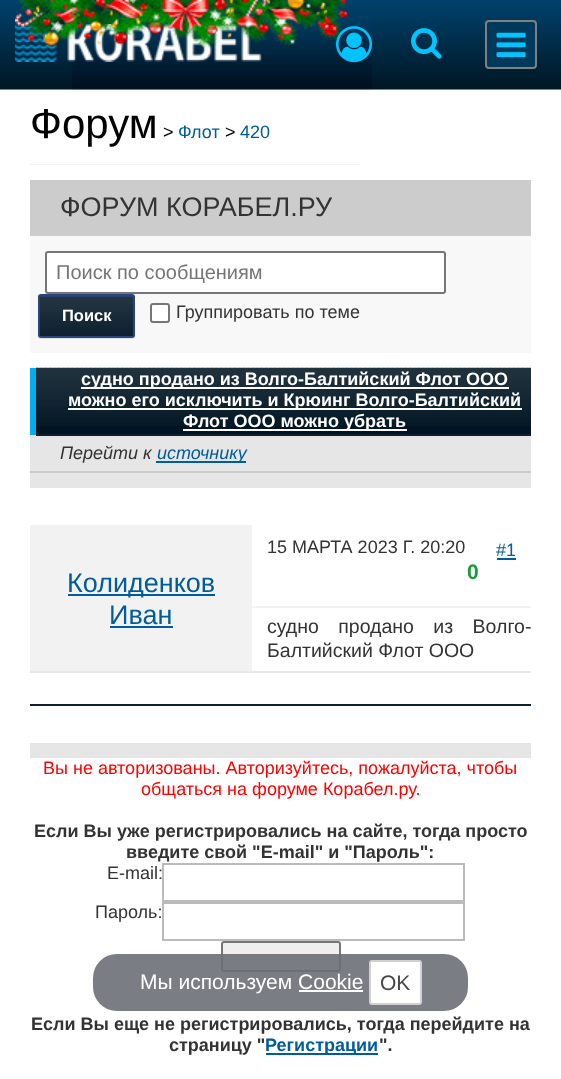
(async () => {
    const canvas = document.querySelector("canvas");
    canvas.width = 561;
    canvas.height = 1079;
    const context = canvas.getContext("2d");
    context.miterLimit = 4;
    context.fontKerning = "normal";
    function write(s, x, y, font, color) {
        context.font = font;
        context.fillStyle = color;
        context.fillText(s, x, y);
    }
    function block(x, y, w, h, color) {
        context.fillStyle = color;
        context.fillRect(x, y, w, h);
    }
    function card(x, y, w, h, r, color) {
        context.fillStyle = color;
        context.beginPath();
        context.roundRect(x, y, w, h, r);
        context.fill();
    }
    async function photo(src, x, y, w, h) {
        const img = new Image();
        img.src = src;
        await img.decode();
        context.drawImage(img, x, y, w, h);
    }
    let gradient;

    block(0, 0, 561, 1079, "rgb(255, 255, 255)");
    block(0, 89, 561, 1, "rgb(128, 128, 128)");
    gradient = context.createLinearGradient(281, 0, 281, 89);
    gradient.addColorStop(0, "rgb(0, 66, 109)");
    gradient.addColorStop(1, "rgb(0, 22, 36)");
    context.fillStyle = gradient;
    context.fillRect(0, 0, 561, 89);
    await photo("media/2.png", 72, 16, 300, 74);
    await photo("media/3.png", 336, 26, 36, 37);
    await photo("media/5.png", 15, 24, 247, 38);
    await photo("media/1.png", 15, 0, 333, 48);
    context.fillStyle = "rgb(0, 57, 89)";
    context.beginPath();
    context.roundRect(486, 21, 50, 47, 3);
    context.fill();
    context.strokeStyle = "rgb(128, 128, 128)";
    context.lineWidth = 2;
    context.stroke();
    await photo("media/4.png", 496, 32, 30, 25);
    await photo("media/6.png", 411, 28, 31, 31);
    write("Форум", 30, 138, "42px Liberation Sans", "rgb(0, 0, 0)");
    write(">", 163, 138, "18px Liberation Sans", "rgb(0, 0, 0)");
    write("Флот", 178, 138, "18px Liberation Sans", "rgb(0, 92, 154)");
    write(">", 225, 138, "18px Liberation Sans", "rgb(0, 0, 0)");
    write("420", 240, 138, "18px Liberation Sans", "rgb(0, 92, 154)");
    block(30, 164, 330, 1, "rgb(239, 239, 240)");
    block(30, 180, 501, 56, "rgb(204, 204, 204)");
    write("ФОРУМ КОРАБЕЛ.РУ", 60, 216, "27px Liberation Sans", "rgb(51, 51, 51)");
    block(30, 236, 501, 117, "rgb(248, 248, 248)");
    context.fillStyle = "rgb(255, 255, 255)";
    context.beginPath();
    context.roundRect(46, 252, 399, 41, 2);
    context.fill();
    context.strokeStyle = "rgb(118, 118, 118)";
    context.stroke();
    write("Поиск по сообщениям", 56, 279, "20px Liberation Sans", "rgb(117, 117, 117)");
    context.fillStyle = "rgb(223, 223, 223)";
    context.beginPath();
    context.moveTo(38, 336);
    context.bezierCurveTo(38, 338, 39, 339, 41, 339);
    context.lineTo(132, 339);
    context.bezierCurveTo(134, 339, 135, 338, 135, 336);
    context.lineTo(135, 334);
    context.bezierCurveTo(135, 336, 134, 338, 132, 338);
    context.lineTo(40, 338);
    context.bezierCurveTo(39, 338, 39, 337, 38, 336);
    context.closePath();
    context.fill();
    context.save();
    context.beginPath();
    context.roundRect(38, 294, 97, 44, 3);
    context.clip();
    gradient = context.createLinearGradient(86, 296, 86, 336);
    gradient.addColorStop(0, "rgb(37, 54, 67)");
    gradient.addColorStop(1, "rgb(13, 32, 47)");
    context.fillStyle = gradient;
    context.fillRect(38, 296, 97, 40);
    context.restore();
    context.fillStyle = "rgb(43, 64, 109)";
    context.beginPath();
    context.moveTo(40, 297);
    context.lineTo(132, 297);
    context.lineTo(134, 298);
    context.bezierCurveTo(134, 297, 134, 296, 132, 296);
    context.lineTo(40, 296);
    context.bezierCurveTo(39, 296, 39, 297, 39, 298);
    context.closePath();
    context.fill();
    context.beginPath();
    context.roundRect(39, 295, 95, 42, 2);
    context.strokeStyle = "rgb(41, 68, 126)";
    context.stroke();
    write("Поиск", 62, 321, "bold 16.5px Liberation Sans", "rgb(255, 255, 255)");
    context.beginPath();
    context.roundRect(151, 304, 18, 18, 2);
    context.fill();
    context.strokeStyle = "rgb(118, 118, 118)";
    context.stroke();
    write("Группировать по теме", 176, 318, "18px Liberation Sans", "rgb(51, 51, 51)");
    block(30, 368, 6, 67, "rgb(3, 174, 238)");
    block(36, 426, 495, 8, "rgb(0, 20, 34)");
    await photo("media/7.png", 36, 367, 495, 59);
    block(30, 435, 501, 36, "rgb(230, 230, 230)");
    block(36, 434, 495, 2, "rgb(13, 32, 46)");
    block(81, 387, 428, 2, "rgb(255, 255, 255)");
    write("судно продано из Волго-Балтийский Флот ООО", 81, 385, "bold 18px Liberation Sans", "rgb(255, 255, 255)");
    block(68, 408, 454, 2, "rgb(255, 255, 255)");
    write("можно его исключить и Крюинг Волго-Балтийский", 68, 406, "bold 18px Liberation Sans", "rgb(255, 255, 255)");
    block(183, 429, 224, 2, "rgb(255, 255, 255)");
    write("Флот ООО можно убрать", 183, 427, "bold 18px Liberation Sans", "rgb(255, 255, 255)");
    block(30, 471, 501, 2, "rgb(204, 204, 204)");
    write("Перейти к", 60, 459, "italic 18px Liberation Sans", "rgb(51, 51, 51)");
    block(156, 461, 90, 2, "rgb(0, 92, 154)");
    write("источнику", 157, 459, "italic 18px Liberation Sans", "rgb(0, 92, 154)");
    block(30, 473, 501, 15, "rgb(230, 230, 230)");
    block(30, 525, 222, 146, "rgb(242, 242, 242)");
    block(252, 606, 279, 2, "rgb(242, 242, 242)");
    write("15 МАРТА 2023 Г. 20:20", 267, 553, "18px Liberation Sans", "rgb(51, 51, 51)");
    write("#1", 496, 556, "18px Liberation Sans", "rgb(0, 92, 154)");
    block(497, 558, 19, 2, "rgb(0, 92, 154)");
    write("0", 467, 579, "bold 21px Liberation Sans", "rgb(24, 156, 58)");
    block(68, 594, 147, 2, "rgb(0, 92, 154)");
    write("Колиденков", 67, 592, "27px Liberation Sans", "rgb(0, 92, 154)");
    write("Иван", 109, 624, "27px Liberation Sans", "rgb(0, 92, 154)");
    block(110, 626, 63, 2, "rgb(0, 92, 154)");
    context.wordSpacing = "14px";
    write("судно продано из Волго-", 267, 633, "19.5px Liberation Sans", "rgb(51, 51, 51)");
    context.wordSpacing = "0px";
    write("Балтийский Флот ООО", 267, 657, "19.5px Liberation Sans", "rgb(51, 51, 51)");
    block(30, 671, 501, 2, "rgb(230, 232, 234)");
    block(30, 704, 501, 2, "rgb(13, 32, 46)");
    block(30, 743, 501, 15, "rgb(230, 230, 230)");
    write("Вы не авторизованы. Авторизуйтесь, пожалуйста, чтобы", 43, 774, "18px Liberation Sans", "rgb(255, 0, 0)");
    write("общаться на форуме Корабел.ру.", 141, 795, "18px Liberation Sans", "rgb(255, 0, 0)");
    write("Если Вы уже регистрировались на сайте, тогда просто", 34, 837, "bold 18px Liberation Sans", "rgb(51, 51, 51)");
    write("введите свой \"E-mail\" и \"Пароль\":", 126, 858, "bold 18px Liberation Sans", "rgb(51, 51, 51)");
    write("E-mail:", 107, 879, "18px Liberation Sans", "rgb(51, 51, 51)");
    context.strokeStyle = "rgb(187, 187, 187)";
    context.strokeRect(163, 864, 301, 37);
    write("Пароль:", 95, 918, "18px Liberation Sans", "rgb(51, 51, 51)");
    context.strokeRect(163, 903, 301, 37);
    context.fillStyle = "rgb(239, 239, 239)";
    context.beginPath();
    context.roundRect(222, 942, 118, 29, 2);
    context.fill();
    context.strokeStyle = "rgb(118, 118, 118)";
    context.stroke();
    write("Если Вы еще не регистрировались, тогда перейдите на", 31, 1030, "bold 18px Liberation Sans", "rgb(51, 51, 51)");
    write("страницу \"", 169, 1051, "bold 18px Liberation Sans", "rgb(51, 51, 51)");
    block(266, 1053, 112, 2, "rgb(0, 92, 154)");
    write("Регистрации", 265, 1051, "bold 18px Liberation Sans", "rgb(0, 92, 154)");
    write("\".", 379, 1051, "bold 18px Liberation Sans", "rgb(51, 51, 51)");
    card(93, 954, 375, 57, 24, "rgba(108, 111, 118, 0.9)");
    write("Мы используем Cookie", 140, 989, "21px Liberation Sans", "rgb(255, 255, 255)");
    context.beginPath();
    context.roundRect(370, 961, 51, 43, 2);
    context.fill();
    context.strokeStyle = "rgb(209, 209, 209)";
    context.stroke();
    write("OK", 380, 990, "21px Liberation Sans", "rgb(71, 71, 71)");
    block(299, 990, 64, 2, "rgb(255, 255, 255)");
})();
